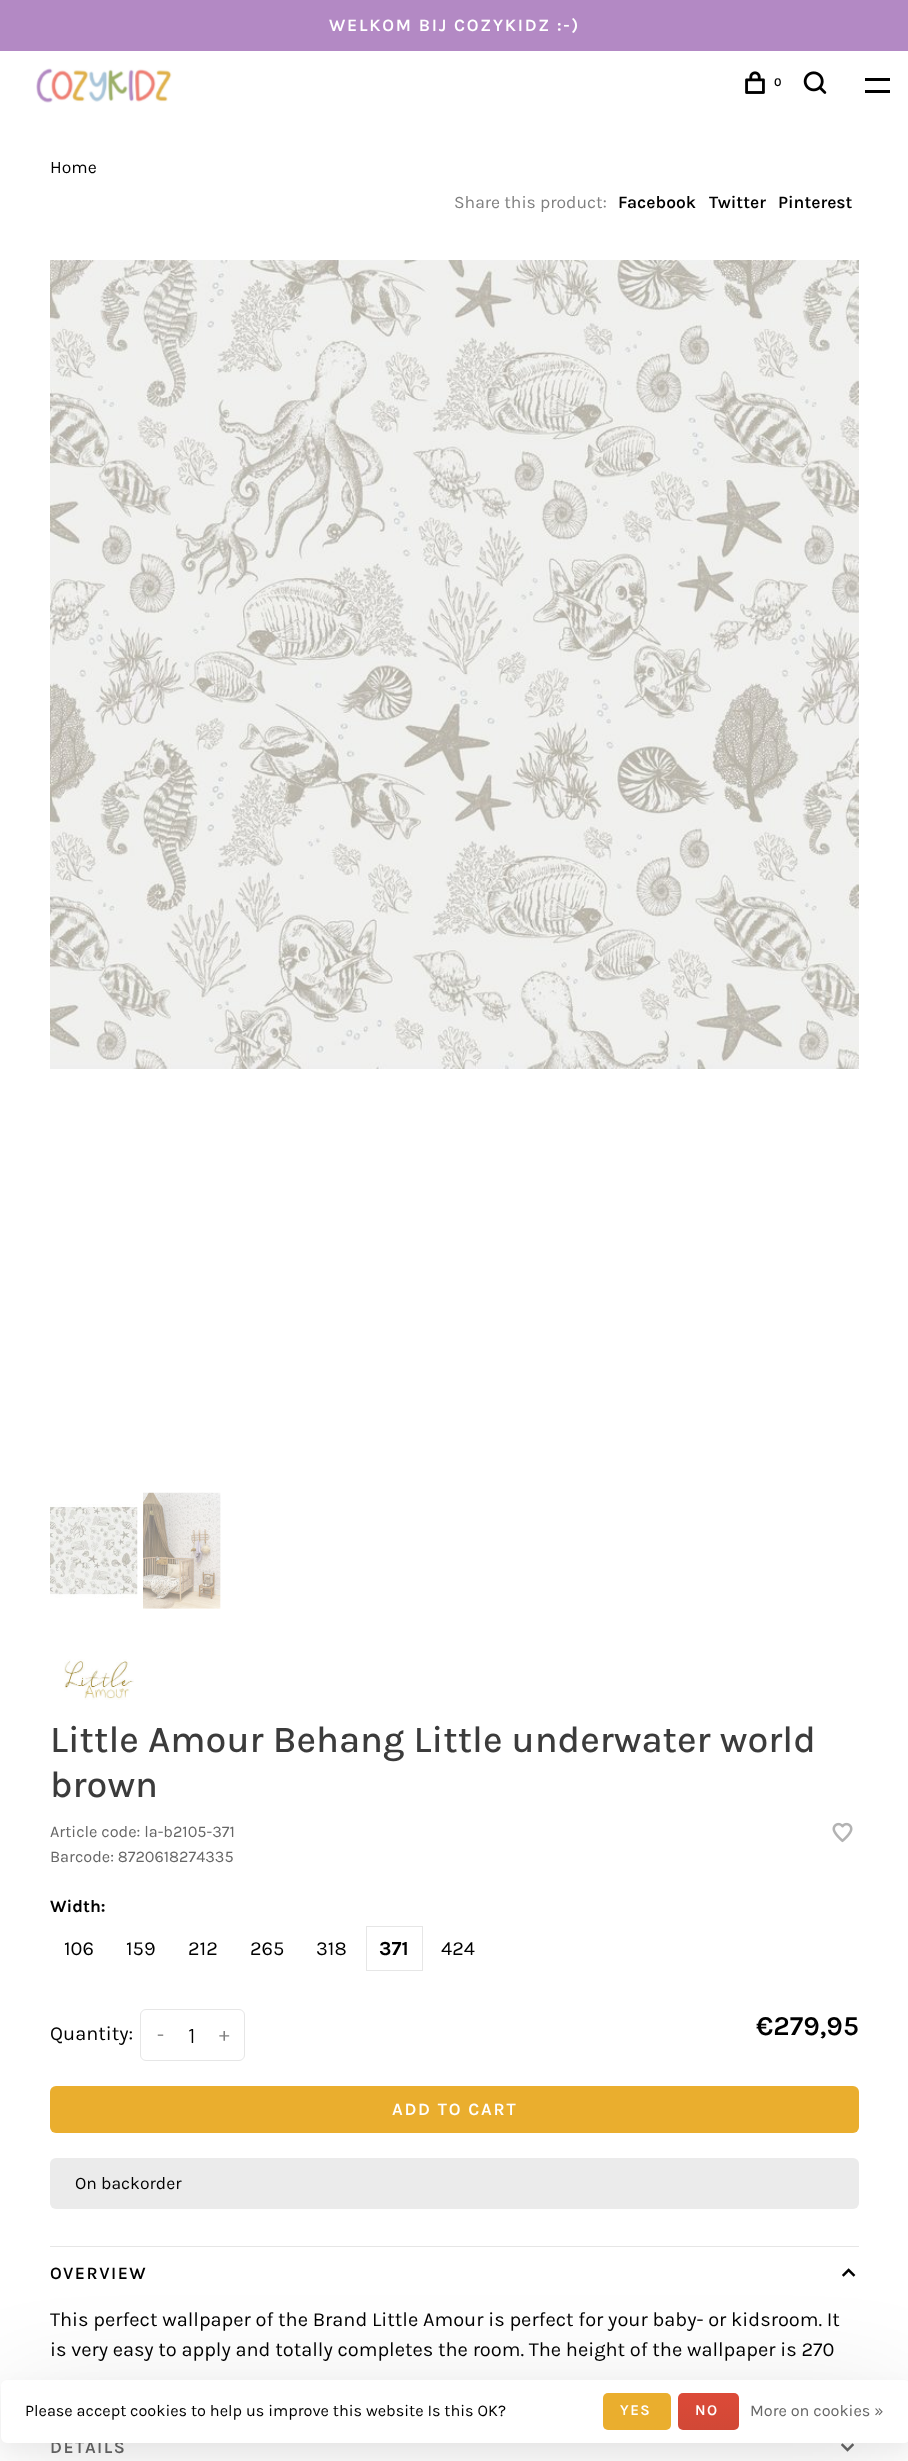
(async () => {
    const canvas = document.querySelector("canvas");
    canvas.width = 908;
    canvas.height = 2461;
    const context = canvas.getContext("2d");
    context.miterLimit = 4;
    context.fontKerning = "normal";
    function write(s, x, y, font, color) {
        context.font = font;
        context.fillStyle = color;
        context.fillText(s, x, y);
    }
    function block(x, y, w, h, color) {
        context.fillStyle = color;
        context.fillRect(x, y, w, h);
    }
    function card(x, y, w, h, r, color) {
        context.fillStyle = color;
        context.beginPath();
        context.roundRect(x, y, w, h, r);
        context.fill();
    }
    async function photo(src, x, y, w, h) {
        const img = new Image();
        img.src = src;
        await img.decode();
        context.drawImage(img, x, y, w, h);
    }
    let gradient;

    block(0, 0, 908, 2461, "rgb(255, 255, 255)");
    block(0, 0, 908, 51, "rgb(179, 137, 196)");
    context.letterSpacing = "1.75px";
    write("WELKOM BIJ COZYKIDZ :-)", 329, 31, "600 17.5px Karla", "rgb(255, 255, 255)");
    await photo("media/1.png", 36, 68, 136, 35);
    await photo("media/2.png", 745, 71, 20, 23);
    write("0", 774, 86, "600 12px Karla", "rgb(0, 0, 0)");
    await photo("media/3.png", 803, 71, 24, 23);
    block(865, 78, 25, 3, "rgb(0, 0, 0)");
    block(865, 90, 25, 3, "rgb(0, 0, 0)");
    context.letterSpacing = "0px";
    write("Home", 50, 173, "17.5px Karla", "rgb(0, 0, 0)");
    write("Share this product:", 454, 208, "17.5px Karla", "rgb(128, 128, 128)");
    write("Facebook", 618, 208, "600 17.5px Karla", "rgb(0, 0, 0)");
    write("Twitter", 709, 208, "600 17.5px Karla", "rgb(0, 0, 0)");
    write("Pinterest", 778, 208, "600 17.5px Karla", "rgb(0, 0, 0)");
    await photo("media/4.png", 50, 260, 809, 809);
    await photo("media/5.png", 50, 1504, 88, 94);
    await photo("media/6.png", 143, 1492, 78, 117);
    await photo("media/7.png", 64, 1659, 70, 41);
    write("Little Amour Behang Little underwater world", 50, 1752, "500 37.5px Karla", "rgb(59, 59, 59)");
    write("brown", 50, 1797, "500 37.5px Karla", "rgb(59, 59, 59)");
    write("Article code: la-b2105-371", 50, 1837, "16.25px Karla", "rgb(102, 102, 102)");
    write("Barcode: 8720618274335", 50, 1862, "16.25px Karla", "rgb(102, 102, 102)");
    await photo("media/8.png", 832, 1822, 21, 21);
    write("Width:", 50, 1912, "bold 17.5px Karla", "rgb(0, 0, 0)");
    write("106", 64, 1955, "20px Karla", "rgb(0, 0, 0)");
    write("159", 126, 1955, "20px Karla", "rgb(0, 0, 0)");
    write("212", 188, 1955, "20px Karla", "rgb(0, 0, 0)");
    write("265", 250, 1955, "20px Karla", "rgb(0, 0, 0)");
    write("318", 316, 1955, "20px Karla", "rgb(0, 0, 0)");
    context.strokeStyle = "rgb(230, 230, 230)";
    context.strokeRect(366.5, 1926.5, 56, 44);
    write("371", 379, 1955, "bold 20px Karla", "rgb(0, 0, 0)");
    write("424", 441, 1955, "20px Karla", "rgb(0, 0, 0)");
    write("Quantity:", 50, 2040, "20px Karla", "rgb(0, 0, 0)");
    context.beginPath();
    context.roundRect(140.5, 2009.5, 104, 51, 5.5);
    context.stroke();
    write("1", 188, 2043, "20px Barlow", "rgb(0, 0, 0)");
    write("-", 157, 2041, "20px Karla", "rgb(128, 128, 128)");
    write("+", 219, 2041, "20px Karla", "rgb(128, 128, 128)");
    write("€279,95", 756, 2035, "600 27.5px Karla", "rgb(0, 0, 0)");
    card(50, 2086, 809, 47, 6, "rgb(234, 174, 46)");
    context.letterSpacing = "1.75px";
    write("ADD TO CART", 392, 2115, "600 17.5px Karla", "rgb(255, 255, 255)");
    card(50, 2158, 809, 51, 6, "rgb(235, 235, 235)");
    context.letterSpacing = "0px";
    write("On backorder", 75, 2189, "17.5px Karla", "rgb(0, 0, 0)");
    block(50, 2246, 809, 1, "rgb(230, 230, 230)");
    context.letterSpacing = "1.5px";
    write("OVERVIEW", 50, 2279, "600 17.5px Karla", "rgb(0, 0, 0)");
    await photo("media/9.png", 842, 2268, 14, 9);
    context.letterSpacing = "0px";
    write("This perfect wallpaper of the Brand Little Amour is perfect for your baby- or kidsroom. It", 50, 2326, "20px Karla", "rgb(0, 0, 0)");
    write("is very easy to apply and totally completes the room. The height of the wallpaper is 270", 50, 2356, "20px Karla", "rgb(0, 0, 0)");
    context.letterSpacing = "1.5px";
    write("DETAILS", 50, 2453, "600 17.5px Karla", "rgb(102, 102, 102)");
    await photo("media/10.png", 841, 2443, 13, 9);
    context.fillStyle = "rgba(0, 0, 0, 0.05)";
    context.filter = "blur(9.5px)";
    context.beginPath();
    context.roundRect(1, 2388, 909, 62, 6);
    context.fill();
    context.filter = "none";
    context.fillStyle = "rgba(0, 0, 0, 0.15)";
    context.filter = "blur(54px)";
    context.beginPath();
    context.rect(9, 2405, 894, 48);
    context.fill();
    context.filter = "none";
    card(1, 2380, 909, 63, 6, "rgb(255, 255, 255)");
    context.letterSpacing = "0px";
    write("Please accept cookies to help us improve this website Is this OK?", 25, 2416, "16.25px Karla", "rgb(0, 0, 0)");
    card(603, 2393, 68, 37, 5, "rgb(234, 174, 46)");
    context.letterSpacing = "1.5px";
    write("YES", 620, 2415, "600 15px Karla", "rgb(255, 255, 255)");
    gradient = context.createLinearGradient(708, 2393, 708, 2430);
    gradient.addColorStop(0, "rgb(220, 74, 56)");
    gradient.addColorStop(1, "rgb(209, 72, 54)");
    context.fillStyle = gradient;
    context.beginPath();
    context.roundRect(678, 2393, 61, 37, 5);
    context.fill();
    write("NO", 695, 2415, "600 15px Karla", "rgb(255, 255, 255)");
    context.letterSpacing = "0px";
    write("More on cookies »", 750, 2416, "16.25px Karla", "rgb(102, 102, 102)");
})();
